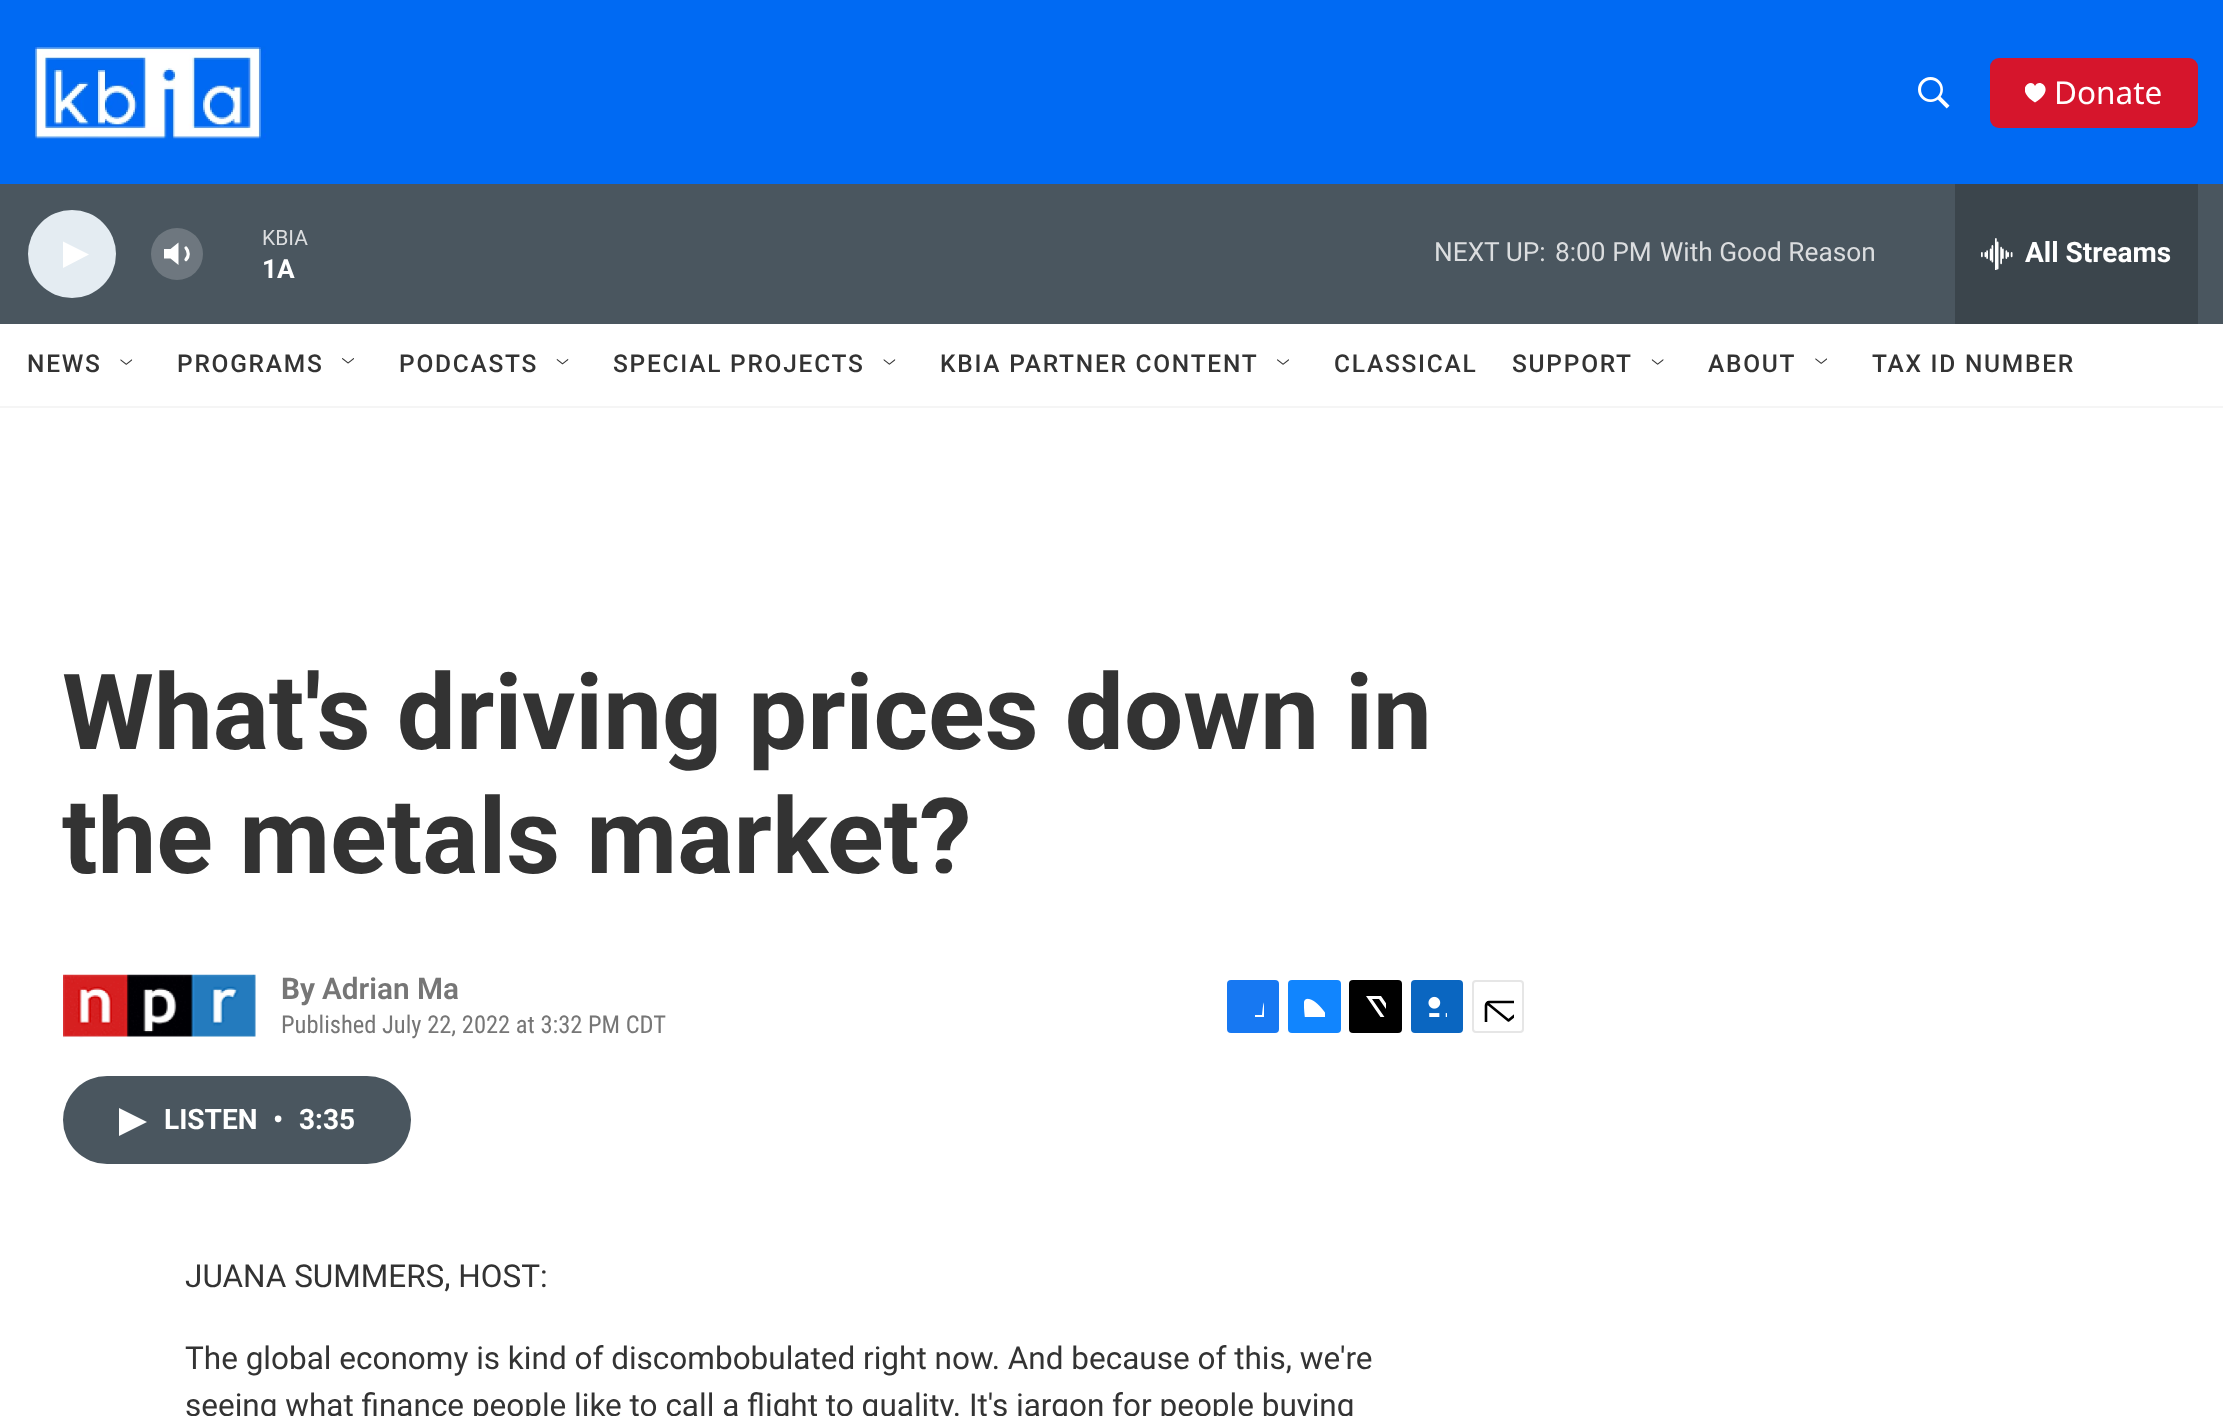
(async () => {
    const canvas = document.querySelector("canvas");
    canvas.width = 2223;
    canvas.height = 1416;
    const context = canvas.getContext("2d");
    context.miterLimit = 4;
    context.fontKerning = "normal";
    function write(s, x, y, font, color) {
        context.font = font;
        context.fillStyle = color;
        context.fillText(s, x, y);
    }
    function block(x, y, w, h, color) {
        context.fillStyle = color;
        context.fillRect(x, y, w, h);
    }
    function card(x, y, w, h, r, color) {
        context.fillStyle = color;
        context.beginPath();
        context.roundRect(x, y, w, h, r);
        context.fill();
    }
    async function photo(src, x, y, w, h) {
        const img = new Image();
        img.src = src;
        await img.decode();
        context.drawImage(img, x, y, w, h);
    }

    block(0, 0, 2223, 1416, "rgb(255, 255, 255)");
    block(0, 0, 2223, 184, "rgb(0, 106, 243)");
    block(0, 406, 2223, 2, "rgb(245, 245, 245)");
    await photo("media/1.png", 34, 46, 232, 93);
    await photo("media/2.png", 1918, 77, 32, 32);
    card(1990, 58, 208, 70, 9, "rgb(214, 21, 44)");
    context.save();
    context.beginPath();
    context.rect(2025, 82, 21, 21);
    context.clip();
    context.fillStyle = "rgb(255, 255, 255)";
    context.beginPath();
    context.moveTo(2035, 86);
    context.bezierCurveTo(2032, 77, 2013.5, 89, 2035, 102.5);
    context.bezierCurveTo(2057, 89, 2038.5, 77, 2035, 86);
    context.closePath();
    context.fill();
    context.restore();
    write("Donate", 2054, 104, "31.5px Noto Sans", "rgb(255, 255, 255)");
    block(0, 184, 2223, 140, "rgb(74, 86, 95)");
    context.fillStyle = "rgb(228, 236, 242)";
    context.beginPath();
    context.arc(72, 254, 44, 0, Math.PI * 2);
    context.fill();
    context.fillStyle = "rgb(255, 255, 255)";
    context.beginPath();
    context.moveTo(63, 241.5);
    context.lineTo(89, 254.5);
    context.lineTo(63, 268);
    context.closePath();
    context.fill();
    context.beginPath();
    context.moveTo(178.5, 242.5);
    context.lineTo(170.5, 249);
    context.lineTo(164, 249);
    context.lineTo(164, 258.5);
    context.lineTo(170.5, 258.5);
    context.lineTo(178.5, 265);
    context.closePath();
    context.fill();
    context.beginPath();
    context.moveTo(186, 248);
    context.bezierCurveTo(189, 251.5, 189, 256.5, 186, 259.5);
    context.strokeStyle = "rgb(255, 255, 255)";
    context.lineWidth = 3.2;
    context.lineCap = "round";
    context.lineJoin = "round";
    context.stroke();
    context.fillStyle = "rgba(255, 255, 255, 0.2)";
    context.beginPath();
    context.arc(177, 254, 26, 0, Math.PI * 2);
    context.fill();
    write("KBIA", 262, 245, "21px Roboto", "rgb(219, 221, 223)");
    write("1A", 262, 278, "bold 26.25px 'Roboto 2'", "rgb(255, 255, 255)");
    write("NEXT UP:", 1434, 261, "26.25px Roboto", "rgb(219, 221, 223)");
    write("8:00 PM", 1555, 261, "26.25px Roboto", "rgb(219, 221, 223)");
    write("With Good Reason", 1660, 261, "26.25px Roboto", "rgb(219, 221, 223)");
    block(1955, 184, 243, 140, "rgb(59, 69, 76)");
    await photo("media/3.png", 1981, 238, 32, 32);
    write("All Streams", 2025, 262, "bold 28px 'Roboto 2'", "rgb(255, 255, 255)");
    context.letterSpacing = "1.75px";
    write("NEWS", 27, 372, "500 24.5px Roboto", "rgb(51, 51, 51)");
    await photo("media/4.png", 120, 359, 13, 6);
    write("PROGRAMS", 177, 372, "500 24.5px Roboto", "rgb(51, 51, 51)");
    await photo("media/5.png", 342, 358, 12, 6);
    write("PODCASTS", 399, 372, "500 24.5px Roboto", "rgb(51, 51, 51)");
    await photo("media/6.png", 556, 358, 13, 7);
    write("SPECIAL PROJECTS", 613, 372, "500 24.5px Roboto", "rgb(51, 51, 51)");
    await photo("media/7.png", 883, 359, 13, 6);
    write("KBIA PARTNER CONTENT", 940, 372, "500 24.5px Roboto", "rgb(51, 51, 51)");
    await photo("media/8.png", 1277, 359, 12, 6);
    write("CLASSICAL", 1334, 372, "500 24.5px Roboto", "rgb(51, 51, 51)");
    write("SUPPORT", 1512, 372, "500 24.5px Roboto", "rgb(51, 51, 51)");
    await photo("media/9.png", 1651, 359, 13, 6);
    write("ABOUT", 1708, 372, "500 24.5px Roboto", "rgb(51, 51, 51)");
    await photo("media/10.png", 1815, 358, 12, 6);
    write("TAX ID NUMBER", 1872, 372, "500 24.5px Roboto", "rgb(51, 51, 51)");
    context.letterSpacing = "0px";
    write("What's driving prices down in", 62, 749, "bold 105px Roboto", "rgb(51, 51, 51)");
    write("the metals market?", 62, 873, "bold 105px Roboto", "rgb(51, 51, 51)");
    await photo("media/11.png", 63, 974, 193, 64);
    write("By", 281, 999, "bold 29.75px Roboto", "rgb(118, 118, 118)");
    write("Adrian Ma", 322, 999, "600 29.75px Roboto", "rgb(118, 118, 118)");
    write("Published July 22, 2022 at 3:32 PM CDT", 281, 1033, "24.5px Roboto Condensed", "rgb(118, 118, 118)");
    card(1227, 980, 52, 53, 4, "rgb(23, 120, 242)");
    context.save();
    context.beginPath();
    context.rect(1243, 996, 21, 21);
    context.clip();
    context.fillStyle = "rgb(255, 255, 255)";
    context.beginPath();
    context.moveTo(1272, 1033);
    context.lineTo(1262, 1033);
    context.lineTo(1262, 1024);
    context.lineTo(1255, 1024);
    context.lineTo(1255, 1015);
    context.lineTo(1262, 1015);
    context.bezierCurveTo(1263.5, 1002, 1262.5, 995, 1279, 997);
    context.lineTo(1279, 1005);
    context.bezierCurveTo(1270, 1005, 1272, 1007, 1272, 1015);
    context.lineTo(1279, 1015);
    context.lineTo(1279, 1024);
    context.lineTo(1272, 1024);
    context.closePath();
    context.fill();
    context.restore();
    card(1288, 980, 53, 53, 4, "rgb(17, 133, 254)");
    await photo("media/12.png", 1304, 998, 21, 19);
    card(1349, 980, 53, 53, 4, "rgb(0, 0, 0)");
    context.save();
    context.beginPath();
    context.rect(1365, 996, 21, 21);
    context.clip();
    context.fillStyle = "rgb(255, 255, 255)";
    context.beginPath();
    context.moveTo(1396, 1018);
    context.lineTo(1402, 1026.5);
    context.bezierCurveTo(1402, 1028, 1402, 1030, 1401.5, 1031);
    context.lineTo(1379, 999);
    context.lineTo(1372, 999);
    context.lineTo(1395.5, 1033);
    context.lineTo(1391.5, 1033);
    context.lineTo(1388, 1028);
    context.lineTo(1383.5, 1033);
    context.lineTo(1379, 1033);
    context.lineTo(1386, 1025);
    context.lineTo(1366, 996);
    context.lineTo(1381, 996);
    context.lineTo(1394, 1015);
    context.lineTo(1402, 1006);
    context.lineTo(1402, 1011);
    context.closePath();
    context.fill();
    context.restore();
    card(1411, 980, 52, 53, 4, "rgb(10, 102, 193)");
    await photo("media/13.png", 1428, 996, 19, 21);
    context.beginPath();
    context.roundRect(1473, 981, 50, 51, 3);
    context.strokeStyle = "rgb(230, 230, 230)";
    context.lineWidth = 2;
    context.lineJoin = "miter";
    context.stroke();
    context.save();
    context.beginPath();
    context.rect(1482, 991, 32, 31);
    context.clip();
    context.beginPath();
    context.moveTo(1531, 1029);
    context.bezierCurveTo(1531, 1030.5, 1529.5, 1032, 1528, 1032);
    context.lineTo(1489, 1032);
    context.bezierCurveTo(1487.5, 1032, 1486, 1030.5, 1486, 1029);
    context.lineTo(1486, 1005.5);
    context.bezierCurveTo(1486, 1003.5, 1487.5, 1002, 1489, 1002);
    context.lineTo(1528, 1002);
    context.bezierCurveTo(1529.5, 1002, 1531, 1003.5, 1531, 1005.5);
    context.closePath();
    context.moveTo(1530, 1003);
    context.lineTo(1508.5, 1020.5);
    context.lineTo(1487, 1003);
    context.strokeStyle = "rgb(0, 0, 0)";
    context.lineWidth = 2.6;
    context.lineJoin = "round";
    context.stroke();
    context.restore();
    card(63, 1076, 348, 88, 44, "rgb(74, 86, 95)");
    context.fillStyle = "rgb(255, 255, 255)";
    context.beginPath();
    context.moveTo(119, 1108);
    context.lineTo(147, 1122);
    context.lineTo(119, 1136);
    context.closePath();
    context.fill();
    write("LISTEN", 164, 1129, "bold 28px 'Roboto 2'", "rgb(255, 255, 255)");
    write("•", 273, 1129, "bold 28px 'Roboto 2'", "rgb(255, 255, 255)");
    write("3:35", 299, 1129, "bold 28px 'Roboto 2'", "rgb(255, 255, 255)");
    write("JUANA SUMMERS, HOST:", 185, 1287, "31.5px Roboto", "rgb(51, 51, 51)");
    write("The global economy is kind of discombobulated right now. And because of this, we're", 185, 1369, "31.5px Roboto", "rgb(51, 51, 51)");
    write("seeing what finance people like to call a flight to quality. It's jargon for people buying", 185, 1416, "31.5px Roboto", "rgb(51, 51, 51)");
})();
